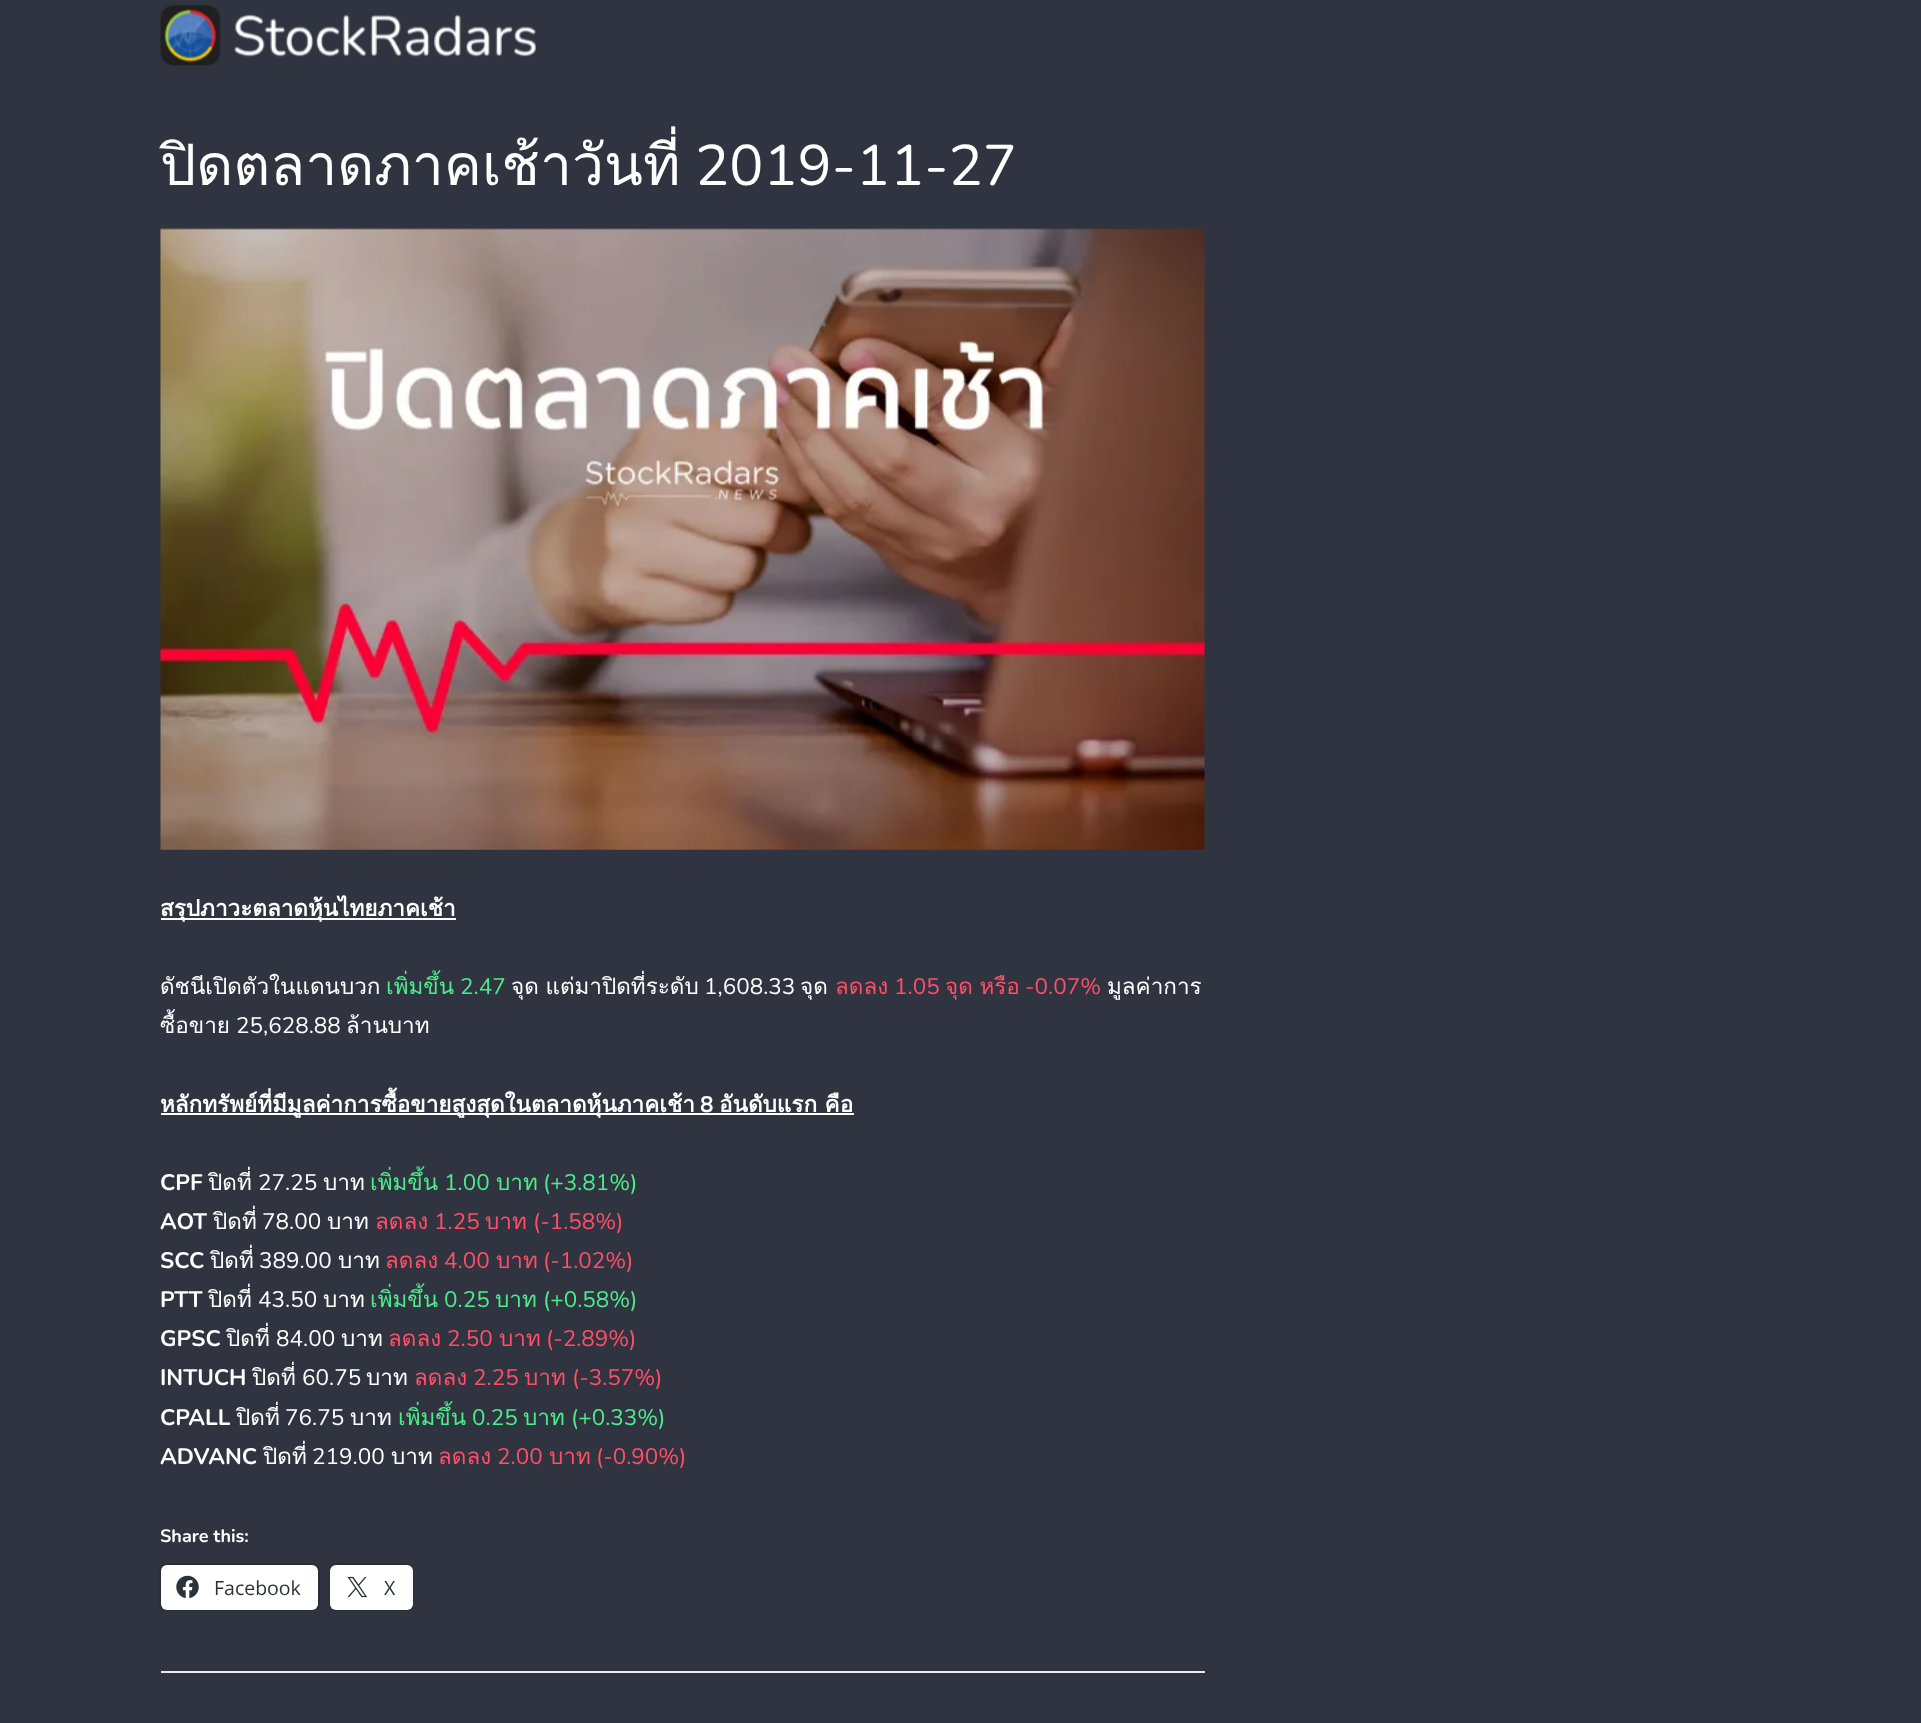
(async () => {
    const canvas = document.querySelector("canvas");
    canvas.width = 1921;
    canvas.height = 1723;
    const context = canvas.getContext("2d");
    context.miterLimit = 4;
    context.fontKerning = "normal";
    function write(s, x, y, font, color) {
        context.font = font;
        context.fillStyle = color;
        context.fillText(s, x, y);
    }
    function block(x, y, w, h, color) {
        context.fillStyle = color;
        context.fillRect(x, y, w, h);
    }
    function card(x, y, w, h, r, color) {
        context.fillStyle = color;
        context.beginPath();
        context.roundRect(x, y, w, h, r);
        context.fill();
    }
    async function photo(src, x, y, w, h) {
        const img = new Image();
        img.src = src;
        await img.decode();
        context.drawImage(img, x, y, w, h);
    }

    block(0, 0, 1921, 1723, "rgb(48, 52, 64)");
    await photo("media/1.png", 160, 5, 376, 61);
    write("ปิดตลาดภาคเช้าวันที่", 160, 185, "57px Loma", "rgb(255, 255, 255)");
    write("2019-11-27", 695, 185, "57px Nunito", "rgb(255, 255, 255)");
    await photo("media/2.png", 160, 228, 1045, 622);
    block(161, 918, 295, 2, "rgb(255, 255, 255)");
    write("สรุปภาวะตลาดหุ้นไทยภาคเช้า", 160, 916, "bold 22.5px Loma", "rgb(255, 255, 255)");
    write("ดัชนีเปิดตัวในแดนบวก", 160, 994, "22.5px Loma", "rgb(255, 255, 255)");
    write("เพิ่มขึ้น", 386, 994, "22.5px Loma", "rgb(76, 236, 138)");
    write("2.47", 460, 994, "22.5px Nunito", "rgb(76, 236, 138)");
    context.wordSpacing = "-1px";
    write("จุด แต่มาปิดที่ระดับ", 511, 994, "22.5px Loma", "rgb(255, 255, 255)");
    context.wordSpacing = "0px";
    write("1,608.33", 704, 994, "22.5px Nunito", "rgb(255, 255, 255)");
    write("จุด", 800, 994, "22.5px Loma", "rgb(255, 255, 255)");
    write("ลดลง", 835, 994, "22.5px Loma", "rgb(255, 78, 103)");
    write("1.05", 894, 994, "22.5px Nunito", "rgb(255, 78, 103)");
    context.wordSpacing = "-1px";
    write("จุด หรือ", 945, 994, "22.5px Loma", "rgb(255, 78, 103)");
    context.wordSpacing = "0px";
    write("-0.07%", 1025, 994, "22.5px Nunito", "rgb(255, 78, 103)");
    write("มูลค่าการ", 1107, 994, "22.5px Loma", "rgb(255, 255, 255)");
    write("ซื้อขาย", 160, 1033, "22.5px Loma", "rgb(255, 255, 255)");
    write("25,628.88", 236, 1033, "22.5px Nunito", "rgb(255, 255, 255)");
    write("ล้านบาท", 346, 1033, "22.5px Loma", "rgb(255, 255, 255)");
    block(161, 1113, 693, 2, "rgb(255, 255, 255)");
    write("หลักทรัพย์ที่มีมูลค่าการซื้อขายสูงสุดในตลาดหุ้นภาคเช้า", 160, 1112, "bold 22.5px Loma", "rgb(255, 255, 255)");
    write("8", 700, 1112, "bold 22.5px Nunito", "rgb(255, 255, 255)");
    write("อันดับแรก คือ", 719, 1112, "bold 22.5px Loma", "rgb(255, 255, 255)");
    write("CPF", 160, 1190, "bold 22.5px Nunito", "rgb(255, 255, 255)");
    write("ปิดที่", 208, 1190, "22.5px Loma", "rgb(255, 255, 255)");
    write("27.25", 258, 1190, "22.5px Nunito", "rgb(255, 255, 255)");
    write("บาท", 323, 1190, "22.5px Loma", "rgb(255, 255, 255)");
    write("เพิ่มขึ้น", 370, 1190, "22.5px Loma", "rgb(76, 236, 138)");
    write("1.00", 444, 1190, "22.5px Nunito", "rgb(76, 236, 138)");
    write("บาท", 496, 1190, "22.5px Loma", "rgb(76, 236, 138)");
    write("(+3.81%)", 543, 1190, "22.5px Nunito", "rgb(76, 236, 138)");
    write("AOT", 160, 1229, "bold 22.5px Nunito", "rgb(255, 255, 255)");
    write("ปิดที่", 213, 1229, "22.5px Loma", "rgb(255, 255, 255)");
    write("78.00", 262, 1229, "22.5px Nunito", "rgb(255, 255, 255)");
    write("บาท", 327, 1229, "22.5px Loma", "rgb(255, 255, 255)");
    write("ลดลง", 375, 1229, "22.5px Loma", "rgb(255, 78, 103)");
    write("1.25", 434, 1229, "22.5px Nunito", "rgb(255, 78, 103)");
    write("บาท", 485, 1229, "22.5px Loma", "rgb(255, 78, 103)");
    write("(-1.58%)", 533, 1229, "22.5px Nunito", "rgb(255, 78, 103)");
    write("SCC", 160, 1268, "bold 22.5px Nunito", "rgb(255, 255, 255)");
    write("ปิดที่", 210, 1268, "22.5px Loma", "rgb(255, 255, 255)");
    write("389.00", 259, 1268, "22.5px Nunito", "rgb(255, 255, 255)");
    write("บาท", 338, 1268, "22.5px Loma", "rgb(255, 255, 255)");
    write("ลดลง", 385, 1268, "22.5px Loma", "rgb(255, 78, 103)");
    write("4.00", 444, 1268, "22.5px Nunito", "rgb(255, 78, 103)");
    write("บาท", 496, 1268, "22.5px Loma", "rgb(255, 78, 103)");
    write("(-1.02%)", 543, 1268, "22.5px Nunito", "rgb(255, 78, 103)");
    write("PTT", 160, 1307, "bold 22.5px Nunito", "rgb(255, 255, 255)");
    write("ปิดที่", 208, 1307, "22.5px Loma", "rgb(255, 255, 255)");
    write("43.50", 258, 1307, "22.5px Nunito", "rgb(255, 255, 255)");
    write("บาท", 323, 1307, "22.5px Loma", "rgb(255, 255, 255)");
    write("เพิ่มขึ้น", 370, 1307, "22.5px Loma", "rgb(76, 236, 138)");
    write("0.25", 444, 1307, "22.5px Nunito", "rgb(76, 236, 138)");
    write("บาท", 495, 1307, "22.5px Loma", "rgb(76, 236, 138)");
    write("(+0.58%)", 543, 1307, "22.5px Nunito", "rgb(76, 236, 138)");
    write("GPSC", 160, 1346, "bold 22.5px Nunito", "rgb(255, 255, 255)");
    write("ปิดที่", 226, 1346, "22.5px Loma", "rgb(255, 255, 255)");
    write("84.00", 276, 1346, "22.5px Nunito", "rgb(255, 255, 255)");
    write("บาท", 341, 1346, "22.5px Loma", "rgb(255, 255, 255)");
    write("ลดลง", 388, 1346, "22.5px Loma", "rgb(255, 78, 103)");
    write("2.50", 447, 1346, "22.5px Nunito", "rgb(255, 78, 103)");
    write("บาท", 499, 1346, "22.5px Loma", "rgb(255, 78, 103)");
    write("(-2.89%)", 546, 1346, "22.5px Nunito", "rgb(255, 78, 103)");
    write("INTUCH", 160, 1385, "bold 22.5px Nunito", "rgb(255, 255, 255)");
    write("ปิดที่", 252, 1385, "22.5px Loma", "rgb(255, 255, 255)");
    write("60.75", 302, 1385, "22.5px Nunito", "rgb(255, 255, 255)");
    write("บาท", 366, 1385, "22.5px Loma", "rgb(255, 255, 255)");
    write("ลดลง", 414, 1385, "22.5px Loma", "rgb(255, 78, 103)");
    write("2.25", 473, 1385, "22.5px Nunito", "rgb(255, 78, 103)");
    write("บาท", 524, 1385, "22.5px Loma", "rgb(255, 78, 103)");
    write("(-3.57%)", 572, 1385, "22.5px Nunito", "rgb(255, 78, 103)");
    write("CPALL", 160, 1425, "bold 22.5px Nunito", "rgb(255, 255, 255)");
    write("ปิดที่", 236, 1425, "22.5px Loma", "rgb(255, 255, 255)");
    write("76.75", 285, 1425, "22.5px Nunito", "rgb(255, 255, 255)");
    write("บาท", 350, 1425, "22.5px Loma", "rgb(255, 255, 255)");
    write("เพิ่มขึ้น", 398, 1425, "22.5px Loma", "rgb(76, 236, 138)");
    write("0.25", 472, 1425, "22.5px Nunito", "rgb(76, 236, 138)");
    write("บาท", 523, 1425, "22.5px Loma", "rgb(76, 236, 138)");
    write("(+0.33%)", 571, 1425, "22.5px Nunito", "rgb(76, 236, 138)");
    write("ADVANC", 160, 1464, "bold 22.5px Nunito", "rgb(255, 255, 255)");
    write("ปิดที่", 263, 1464, "22.5px Loma", "rgb(255, 255, 255)");
    write("219.00", 312, 1464, "22.5px Nunito", "rgb(255, 255, 255)");
    write("บาท", 391, 1464, "22.5px Loma", "rgb(255, 255, 255)");
    write("ลดลง", 438, 1464, "22.5px Loma", "rgb(255, 78, 103)");
    write("2.00", 497, 1464, "22.5px Nunito", "rgb(255, 78, 103)");
    write("บาท", 549, 1464, "22.5px Loma", "rgb(255, 78, 103)");
    write("(-0.90%)", 596, 1464, "22.5px Nunito", "rgb(255, 78, 103)");
    write("Share this:", 160, 1542, "bold 18px Nunito", "rgb(255, 255, 255)");
    context.beginPath();
    context.roundRect(160, 1564, 159, 46, 7);
    context.strokeStyle = "rgb(42, 46, 56)";
    context.lineWidth = 2;
    context.stroke();
    card(161, 1565, 157, 45, 6, "rgb(255, 255, 255)");
    await photo("media/3.png", 176, 1575, 23, 24);
    write("Facebook", 214, 1595, "19.5px Open Sans", "rgb(44, 51, 56)");
    context.beginPath();
    context.roundRect(330, 1564, 83, 46, 7);
    context.stroke();
    card(330, 1565, 83, 45, 6, "rgb(255, 255, 255)");
    await photo("media/4.png", 347, 1576, 21, 22);
    write("X", 384, 1595, "19.5px Open Sans", "rgb(44, 51, 56)");
    block(161, 1671, 1044, 2, "rgb(235, 235, 235)");
})();
